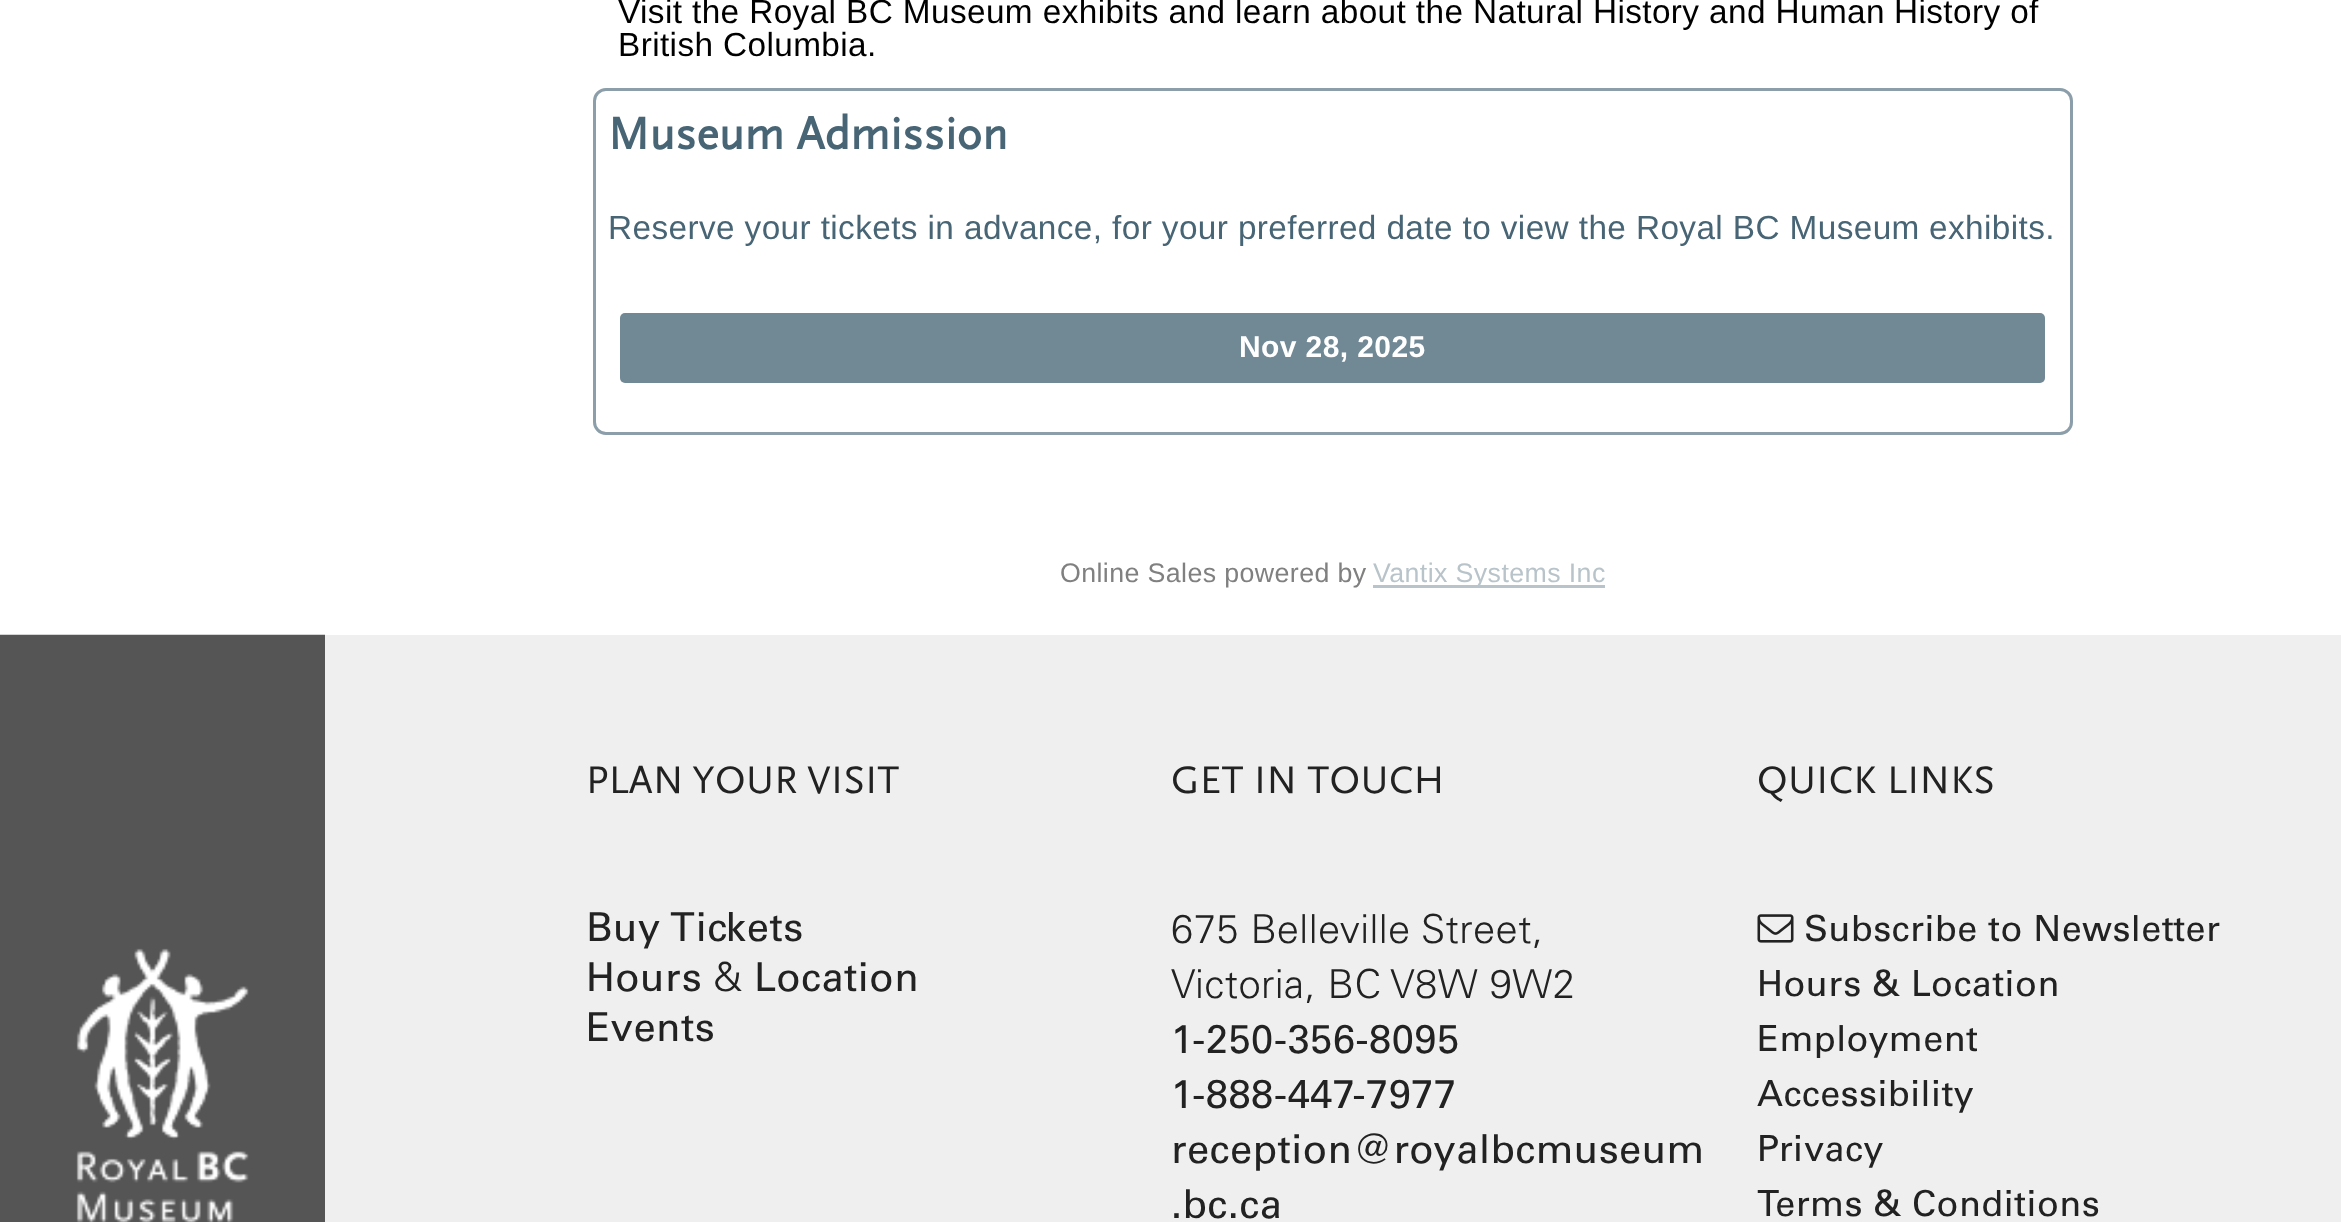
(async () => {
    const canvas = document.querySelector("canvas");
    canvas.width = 2341;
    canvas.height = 1222;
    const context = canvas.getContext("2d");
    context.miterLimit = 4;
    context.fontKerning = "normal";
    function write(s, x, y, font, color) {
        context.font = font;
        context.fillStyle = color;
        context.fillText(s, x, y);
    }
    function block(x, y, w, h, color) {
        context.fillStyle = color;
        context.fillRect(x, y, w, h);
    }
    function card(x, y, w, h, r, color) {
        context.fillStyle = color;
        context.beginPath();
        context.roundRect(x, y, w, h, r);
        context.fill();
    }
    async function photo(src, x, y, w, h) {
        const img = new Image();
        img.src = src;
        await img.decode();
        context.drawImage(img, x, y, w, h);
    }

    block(0, 0, 2341, 1222, "rgb(255, 255, 255)");
    context.letterSpacing = "0.4px";
    write("Visit the Royal BC Museum exhibits and learn about the Natural History and Human", 618, 23, "33.35px Liberation Sans", "rgb(0, 0, 0)");
    write("History of", 1894, 23, "33.35px Liberation Sans", "rgb(0, 0, 0)");
    write("British Columbia.", 618, 56, "33.35px Liberation Sans", "rgb(0, 0, 0)");
    context.beginPath();
    context.roundRect(594.5, 89.5, 1477, 344, 11.5);
    context.strokeStyle = "rgb(139, 158, 169)";
    context.lineWidth = 3;
    context.stroke();
    write("Museum Admission", 608, 149, "bold 46.75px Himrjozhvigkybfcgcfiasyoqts", "rgb(72, 101, 117)");
    write("Reserve your tickets in advance, for your preferred date to view the Royal BC Museum", 608, 239, "33.35px Liberation Sans", "rgb(72, 101, 117)");
    write("exhibits.", 1929, 239, "33.35px Liberation Sans", "rgb(72, 101, 117)");
    card(620, 313, 1425, 70, 5, "rgb(113, 136, 149)");
    write("Nov 28, 2025", 1239, 357, "bold 30px Liberation Sans", "rgb(255, 255, 255)");
    write("Online Sales powered by", 1060, 582, "26.75px Liberation Sans", "rgb(128, 128, 128)");
    block(1373, 585, 232, 3, "rgb(184, 196, 202)");
    write("Vantix Systems Inc", 1373, 582, "26.75px Liberation Sans", "rgb(184, 196, 202)");
    block(325, 635, 2016, 587, "rgb(239, 239, 239)");
    await photo("media/1.png", 0, 634, 325, 588);
    write("PLAN YOUR VISIT", 586, 793, "40px Himrjozhvigkybfcgcfiasyoqts", "rgb(34, 34, 34)");
    write("Buy Tickets", 586, 941, "40px Univers", "rgb(34, 34, 34)");
    write("Hours", 586, 991, "40px Univers", "rgb(34, 34, 34)");
    write("&", 713, 991, "300 40px Univers", "rgb(34, 34, 34)");
    write("Location", 754, 991, "40px Univers", "rgb(34, 34, 34)");
    write("Events", 586, 1041, "40px Univers", "rgb(34, 34, 34)");
    write("GET IN TOUCH", 1171, 793, "40px Himrjozhvigkybfcgcfiasyoqts", "rgb(34, 34, 34)");
    write("675 Belleville Street,", 1171, 943, "300 40px Univers", "rgb(34, 34, 34)");
    write("Victoria, BC V8W 9W2", 1171, 998, "300 40px Univers", "rgb(34, 34, 34)");
    write("1-250-356-8095", 1171, 1053, "40px Univers", "rgb(34, 34, 34)");
    write("1-888-447-7977", 1171, 1108, "40px Univers", "rgb(34, 34, 34)");
    write("reception@royalbcmuseum", 1171, 1163, "40px Univers", "rgb(34, 34, 34)");
    write(".bc.ca", 1171, 1218, "40px Univers", "rgb(34, 34, 34)");
    write("QUICK LINKS", 1757, 793, "40px Himrjozhvigkybfcgcfiasyoqts", "rgb(34, 34, 34)");
    await photo("media/2.png", 1757, 914, 37, 29);
    write("Subscribe to Newsletter", 1804, 941, "36px Univers", "rgb(34, 34, 34)");
    write("Hours & Location", 1757, 996, "36px Univers", "rgb(34, 34, 34)");
    write("Employment", 1757, 1051, "36px Univers", "rgb(34, 34, 34)");
    write("Accessibility", 1757, 1106, "36px Univers", "rgb(34, 34, 34)");
    write("Privacy", 1757, 1161, "36px Univers", "rgb(34, 34, 34)");
    write("Terms & Conditions", 1757, 1216, "36px Univers", "rgb(34, 34, 34)");
})();
